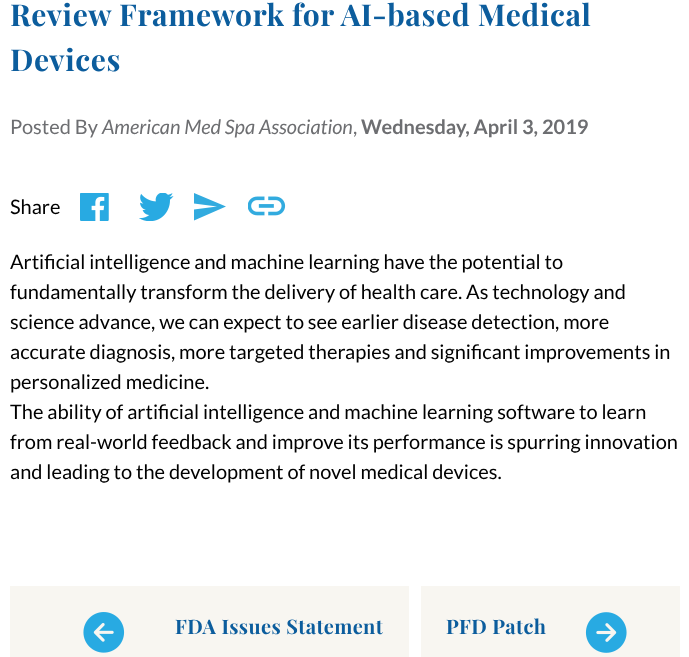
(async () => {
    const canvas = document.querySelector("canvas");
    canvas.width = 689;
    canvas.height = 657;
    const context = canvas.getContext("2d");
    context.miterLimit = 4;
    context.fontKerning = "normal";
    function write(s, x, y, font, color) {
        context.font = font;
        context.fillStyle = color;
        context.fillText(s, x, y);
    }
    function block(x, y, w, h, color) {
        context.fillStyle = color;
        context.fillRect(x, y, w, h);
    }
    async function photo(src, x, y, w, h) {
        const img = new Image();
        img.src = src;
        await img.decode();
        context.drawImage(img, x, y, w, h);
    }

    block(0, 0, 689, 657, "rgb(255, 255, 255)");
    context.letterSpacing = "0.6px";
    write("Review Framework for AI-based Medical", 10, 26, "bold 30px Playfair Display", "rgb(12, 93, 157)");
    write("Devices", 10, 71, "bold 30px Playfair Display", "rgb(12, 93, 157)");
    context.letterSpacing = "0px";
    write("Posted By", 10, 134, "20px Lato", "rgb(109, 110, 113)");
    write("American Med Spa Association", 102, 134, "italic 20px Lato", "rgb(109, 110, 113)");
    write(",", 353, 134, "20px Lato", "rgb(109, 110, 113)");
    write("Wednesday, April 3, 2019", 361, 134, "bold 20px Lato", "rgb(109, 110, 113)");
    write("Share", 10, 214, "20px Lato", "rgb(0, 0, 0)");
    await photo("media/1.png", 80, 193, 29, 28);
    await photo("media/2.png", 139, 193, 35, 28);
    context.fillStyle = "rgb(50, 171, 223)";
    context.beginPath();
    context.moveTo(194, 220.5);
    context.lineTo(226, 206.5);
    context.lineTo(194, 193);
    context.lineTo(194, 203.5);
    context.lineTo(217, 206.5);
    context.lineTo(194, 209.5);
    context.closePath();
    context.fill();
    await photo("media/3.png", 248, 196, 38, 20);
    write("Artificial intelligence and machine learning have the potential to", 10, 269, "20px Lato", "rgb(0, 0, 0)");
    write("fundamentally transform the delivery of health care. As technology and", 10, 299, "20px Lato", "rgb(0, 0, 0)");
    write("science advance, we can expect to see earlier disease detection, more", 10, 329, "20px Lato", "rgb(0, 0, 0)");
    write("accurate diagnosis, more targeted therapies and significant improvements in", 10, 359, "20px Lato", "rgb(0, 0, 0)");
    write("personalized medicine.", 10, 389, "20px Lato", "rgb(0, 0, 0)");
    write("The ability of artificial intelligence and machine learning software to learn", 10, 419, "20px Lato", "rgb(0, 0, 0)");
    write("from real-world feedback and improve its performance is spurring innovation", 10, 449, "20px Lato", "rgb(0, 0, 0)");
    write("and leading to the development of novel medical devices.", 10, 479, "20px Lato", "rgb(0, 0, 0)");
    block(10, 586, 399, 71, "rgb(248, 246, 241)");
    await photo("media/4.png", 83, 612, 42, 41);
    context.letterSpacing = "0.4px";
    write("FDA Issues Statement", 175, 634, "bold 20px Playfair Display", "rgb(12, 93, 157)");
    block(421, 586, 259, 71, "rgb(248, 246, 241)");
    write("PFD Patch", 446, 634, "bold 20px Playfair Display", "rgb(12, 93, 157)");
    await photo("media/5.png", 585, 612, 42, 41);
})();
